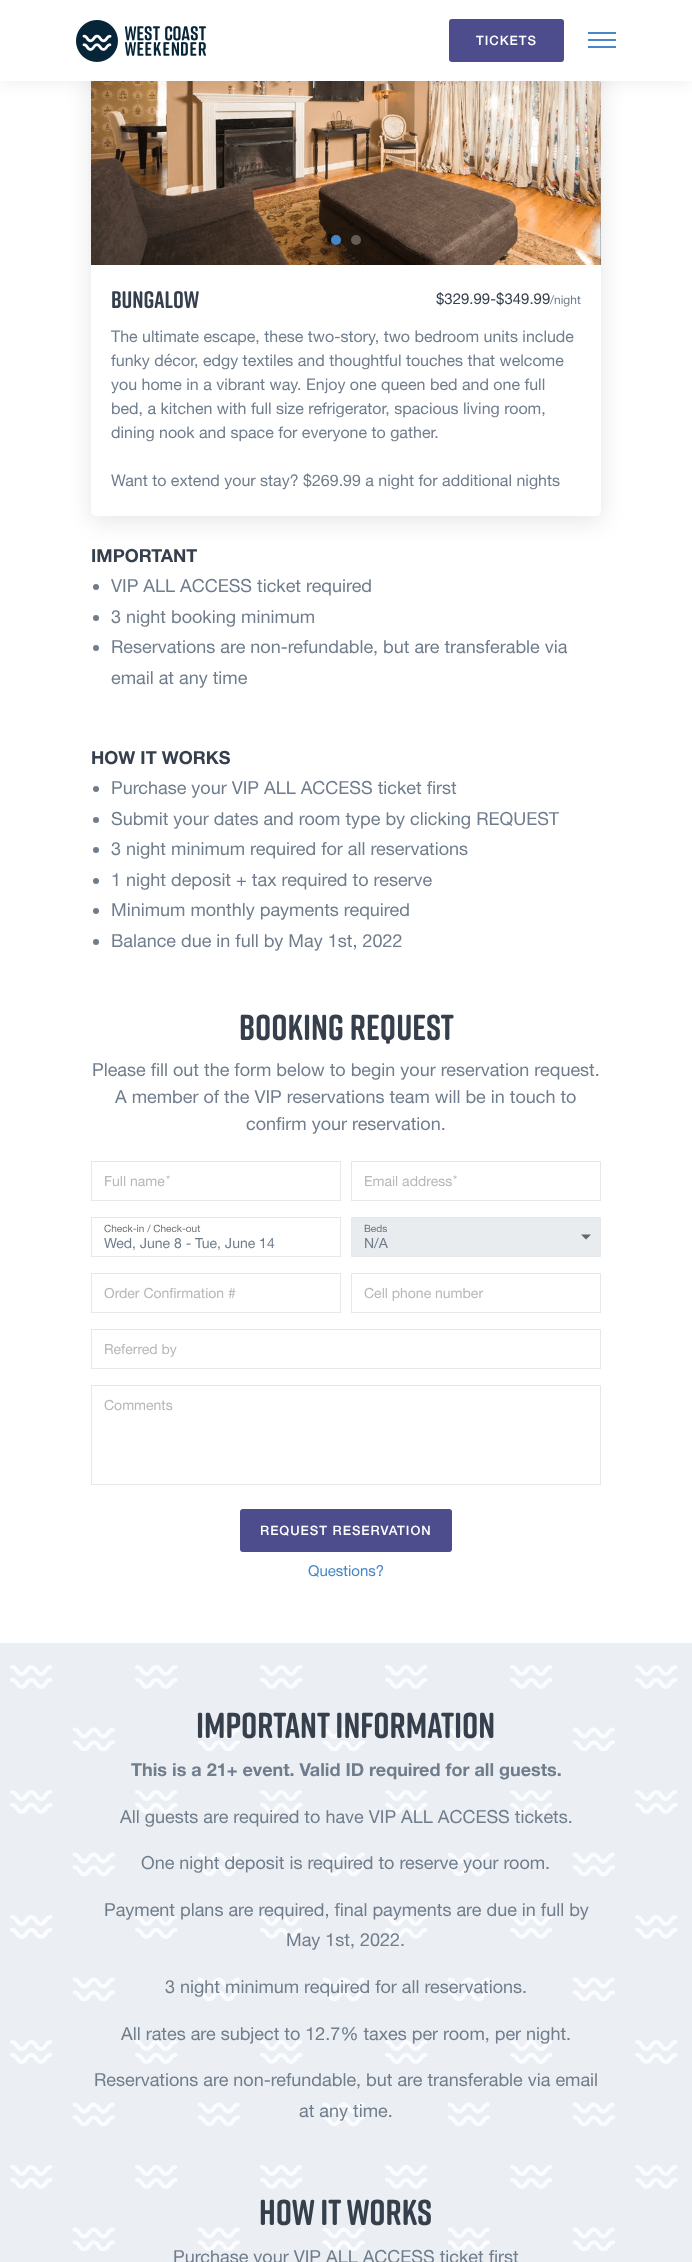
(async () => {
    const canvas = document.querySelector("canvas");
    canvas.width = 692;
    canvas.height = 2262;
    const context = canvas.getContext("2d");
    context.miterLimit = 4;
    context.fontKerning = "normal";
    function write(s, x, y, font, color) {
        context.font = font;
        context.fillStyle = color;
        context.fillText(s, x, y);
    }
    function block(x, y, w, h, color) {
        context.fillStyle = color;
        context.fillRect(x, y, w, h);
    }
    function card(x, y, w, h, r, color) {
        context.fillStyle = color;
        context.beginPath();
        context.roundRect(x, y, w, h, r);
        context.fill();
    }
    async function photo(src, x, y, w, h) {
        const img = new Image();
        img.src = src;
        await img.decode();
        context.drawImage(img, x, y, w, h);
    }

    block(0, 0, 692, 2262, "rgb(255, 255, 255)");
    context.fillStyle = "rgba(0, 0, 0, 0.1)";
    context.filter = "blur(12.5px)";
    context.beginPath();
    context.roundRect(91, -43, 510, 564, 5);
    context.fill();
    context.filter = "none";
    card(91, -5, 510, 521, 5, "rgb(255, 255, 255)");
    await photo("media/2.png", 91, 81, 510, 184);
    context.fillStyle = "rgba(0, 0, 0, 0.05)";
    context.filter = "blur(7.5px)";
    context.beginPath();
    context.rect(0, 4, 692, 81);
    context.fill();
    context.filter = "none";
    block(0, 0, 692, 81, "rgb(255, 255, 255)");
    await photo("media/1.png", 76, 20, 130, 42);
    card(449, 19, 115, 43, 3, "rgb(77, 77, 141)");
    context.letterSpacing = "1px";
    write("TICKETS", 476, 45, "500 13px Helvetica Neue", "rgb(255, 255, 255)");
    block(588, 32, 28, 2, "rgb(70, 135, 199)");
    block(588, 39, 28, 2, "rgb(70, 135, 199)");
    block(588, 46, 28, 2, "rgb(70, 135, 199)");
    context.beginPath();
    context.arc(336, 240, 5, 0, Math.PI * 2);
    context.fill();
    context.fillStyle = "rgba(255, 255, 255, 0.3)";
    context.beginPath();
    context.arc(356, 240, 5, 0, Math.PI * 2);
    context.fill();
    context.letterSpacing = "0px";
    write("Bungalow", 111, 308, "bold 24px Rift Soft", "rgb(54, 64, 77)");
    write("$329.99-$349.99", 436, 304, "15px Helvetica Neue", "rgb(54, 64, 77)");
    write("/night", 550, 304, "12px Helvetica Neue", "rgb(112, 125, 140)");
    write("The ultimate escape, these two-story, two bedroom units include", 111, 342, "16px Helvetica Neue", "rgb(112, 125, 140)");
    write("funky décor, edgy textiles and thoughtful touches that welcome", 111, 366, "16px Helvetica Neue", "rgb(112, 125, 140)");
    write("you home in a vibrant way. Enjoy one queen bed and one full", 111, 390, "16px Helvetica Neue", "rgb(112, 125, 140)");
    write("bed, a kitchen with full size refrigerator, spacious living room,", 111, 414, "16px Helvetica Neue", "rgb(112, 125, 140)");
    write("dining nook and space for everyone to gather.", 111, 438, "16px Helvetica Neue", "rgb(112, 125, 140)");
    write("Want to extend your stay? $269.99 a night for additional nights", 111, 486, "16px Helvetica Neue", "rgb(112, 125, 140)");
    write("IMPORTANT", 91, 562, "bold 18px Helvetica Neue", "rgb(54, 64, 77)");
    context.fillStyle = "rgb(112, 125, 140)";
    context.beginPath();
    context.arc(96, 587, 3, 0, Math.PI * 2);
    context.fill();
    write("VIP ALL ACCESS ticket required", 111, 592, "18px Helvetica Neue", "rgb(112, 125, 140)");
    context.beginPath();
    context.arc(96, 618, 3, 0, Math.PI * 2);
    context.fill();
    write("3 night booking minimum", 111, 623, "18px Helvetica Neue", "rgb(112, 125, 140)");
    context.beginPath();
    context.arc(96, 648, 3, 0, Math.PI * 2);
    context.fill();
    write("Reservations are non-refundable, but are transferable via", 111, 653, "18px Helvetica Neue", "rgb(112, 125, 140)");
    write("email at any time", 111, 684, "18px Helvetica Neue", "rgb(112, 125, 140)");
    write("HOW IT WORKS", 91, 764, "bold 18px Helvetica Neue", "rgb(54, 64, 77)");
    context.fillStyle = "rgb(112, 125, 140)";
    context.beginPath();
    context.arc(96, 789, 3, 0, Math.PI * 2);
    context.fill();
    write("Purchase your VIP ALL ACCESS ticket first", 111, 794, "18px Helvetica Neue", "rgb(112, 125, 140)");
    context.beginPath();
    context.arc(96, 820, 3, 0, Math.PI * 2);
    context.fill();
    write("Submit your dates and room type by clicking REQUEST", 111, 825, "18px Helvetica Neue", "rgb(112, 125, 140)");
    context.beginPath();
    context.arc(96, 850, 3, 0, Math.PI * 2);
    context.fill();
    write("3 night minimum required for all reservations", 111, 855, "18px Helvetica Neue", "rgb(112, 125, 140)");
    context.beginPath();
    context.arc(96, 881, 3, 0, Math.PI * 2);
    context.fill();
    write("1 night deposit + tax required to reserve", 111, 886, "18px Helvetica Neue", "rgb(112, 125, 140)");
    context.beginPath();
    context.arc(96, 911, 3, 0, Math.PI * 2);
    context.fill();
    write("Minimum monthly payments required", 111, 916, "18px Helvetica Neue", "rgb(112, 125, 140)");
    context.beginPath();
    context.arc(96, 942, 3, 0, Math.PI * 2);
    context.fill();
    write("Balance due in full by May 1st, 2022", 111, 947, "18px Helvetica Neue", "rgb(112, 125, 140)");
    write("Booking Request", 239, 1040, "bold 36px Rift Soft", "rgb(54, 64, 77)");
    write("Please fill out the form below to begin your reservation request.", 92, 1076, "18px Helvetica Neue", "rgb(112, 125, 140)");
    write("A member of the VIP reservations team will be in touch to", 115, 1103, "18px Helvetica Neue", "rgb(112, 125, 140)");
    write("confirm your reservation.", 246, 1130, "18px Helvetica Neue", "rgb(112, 125, 140)");
    context.strokeStyle = "rgb(231, 232, 233)";
    context.strokeRect(91.5, 1161.5, 249, 39);
    write("Full name", 104, 1186, "14px Helvetica Neue", "rgb(183, 183, 183)");
    write("*", 166, 1184, "12px Helvetica Neue", "rgb(183, 183, 183)");
    context.strokeRect(351.5, 1161.5, 249, 39);
    write("Email address", 364, 1186, "14px Helvetica Neue", "rgb(183, 183, 183)");
    write("*", 453, 1184, "12px Helvetica Neue", "rgb(183, 183, 183)");
    context.strokeRect(91.5, 1217.5, 249, 39);
    write("Check-in / Check-out", 104, 1232, "10px Helvetica Neue", "rgb(112, 112, 112)");
    write("Wed, June 8 - Tue, June 14", 104, 1248, "14px Helvetica Neue", "rgb(112, 125, 140)");
    context.fillStyle = "rgb(233, 236, 239)";
    context.beginPath();
    context.rect(351.5, 1217.5, 249, 39);
    context.fill();
    context.stroke();
    write("Beds", 364, 1232, "10px Helvetica Neue", "rgb(112, 112, 112)");
    write("N/A", 364, 1248, "14px Helvetica Neue", "rgb(112, 125, 140)");
    context.fillStyle = "rgb(102, 102, 102)";
    context.beginPath();
    context.moveTo(581, 1234.5);
    context.lineTo(591, 1234.5);
    context.lineTo(586, 1239.5);
    context.closePath();
    context.fill();
    context.strokeRect(91.5, 1273.5, 249, 39);
    write("Order Confirmation #", 104, 1298, "14px Helvetica Neue", "rgb(183, 183, 183)");
    context.strokeRect(351.5, 1273.5, 249, 39);
    write("Cell phone number", 364, 1298, "14px Helvetica Neue", "rgb(183, 183, 183)");
    context.strokeRect(91.5, 1329.5, 509, 39);
    write("Referred by", 104, 1354, "14px Helvetica Neue", "rgb(183, 183, 183)");
    context.strokeRect(91.5, 1385.5, 509, 99);
    write("Comments", 104, 1410, "14px Helvetica Neue", "rgb(183, 183, 183)");
    card(240, 1509, 212, 43, 3, "rgb(77, 77, 141)");
    context.letterSpacing = "1px";
    write("REQUEST RESERVATION", 260, 1535, "500 13px Helvetica Neue", "rgb(255, 255, 255)");
    context.letterSpacing = "0px";
    write("Questions?", 308, 1576, "15px Helvetica Neue", "rgb(70, 135, 199)");
    block(0, 1643, 692, 619, "rgb(235, 238, 242)");
    await photo("media/3.png", 10, 1665, 668, 586);
    write("Important Information", 196, 1738, "bold 36px Rift Soft", "rgb(54, 64, 77)");
    write("This is a 21+ event. Valid ID required for all guests.", 131, 1776, "bold 18px Helvetica Neue", "rgb(112, 125, 140)");
    write("All guests are required to have VIP ALL ACCESS tickets.", 120, 1823, "18px Helvetica Neue", "rgb(112, 125, 140)");
    write("One night deposit is required to reserve your room.", 141, 1869, "18px Helvetica Neue", "rgb(112, 125, 140)");
    write("Payment plans are required, final payments are due in full by", 104, 1916, "18px Helvetica Neue", "rgb(112, 125, 140)");
    write("May 1st, 2022.", 286, 1946, "18px Helvetica Neue", "rgb(112, 125, 140)");
    write("3 night minimum required for all reservations.", 165, 1993, "18px Helvetica Neue", "rgb(112, 125, 140)");
    write("All rates are subject to 12.7% taxes per room, per night.", 121, 2040, "18px Helvetica Neue", "rgb(112, 125, 140)");
    write("Reservations are non-refundable, but are transferable via email", 94, 2086, "18px Helvetica Neue", "rgb(112, 125, 140)");
    write("at any time.", 299, 2117, "18px Helvetica Neue", "rgb(112, 125, 140)");
    write("How It Works", 259, 2225, "bold 36px Rift Soft", "rgb(54, 64, 77)");
    write("Purchase your VIP ALL ACCESS ticket first", 173, 2263, "18px Helvetica Neue", "rgb(112, 125, 140)");
})();
